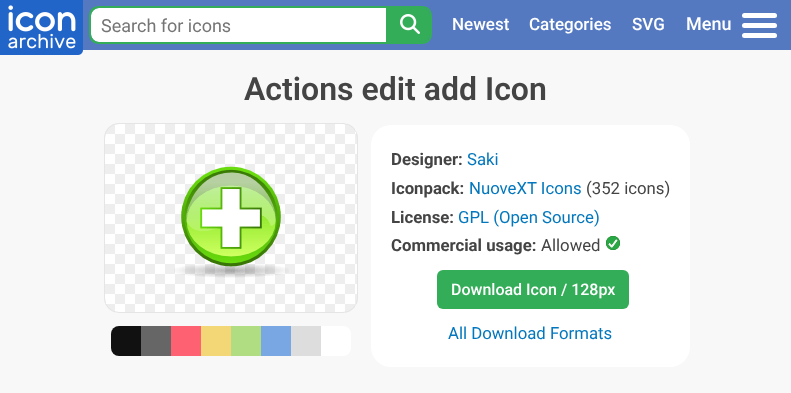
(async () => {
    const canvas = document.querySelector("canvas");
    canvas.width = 791;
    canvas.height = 393;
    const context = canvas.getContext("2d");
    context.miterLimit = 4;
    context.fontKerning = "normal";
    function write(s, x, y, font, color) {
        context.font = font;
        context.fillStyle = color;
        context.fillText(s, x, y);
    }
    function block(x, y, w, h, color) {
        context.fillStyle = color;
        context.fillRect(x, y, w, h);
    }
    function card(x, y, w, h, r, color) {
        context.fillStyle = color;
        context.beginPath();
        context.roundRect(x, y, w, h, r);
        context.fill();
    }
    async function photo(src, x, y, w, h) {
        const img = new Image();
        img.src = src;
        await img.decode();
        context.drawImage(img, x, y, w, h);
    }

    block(0, 0, 791, 393, "rgb(248, 248, 248)");
    block(83, 0, 708, 50, "rgb(84, 121, 193)");
    await photo("media/1.png", 0, 0, 83, 55);
    context.fillStyle = "rgb(255, 255, 255)";
    context.beginPath();
    context.roundRect(91, 8, 295, 34, [8, 0, 0, 8]);
    context.fill();
    context.fillStyle = "rgb(52, 173, 89)";
    context.beginPath();
    context.moveTo(99, 6);
    context.lineTo(386, 6);
    context.lineTo(386, 44);
    context.lineTo(99, 44);
    context.bezierCurveTo(93, 44, 89, 40, 89, 34);
    context.lineTo(89, 16);
    context.bezierCurveTo(89, 10, 93, 6, 99, 6);
    context.closePath();
    context.moveTo(99, 8);
    context.lineTo(386, 8);
    context.lineTo(386, 42);
    context.lineTo(99, 42);
    context.bezierCurveTo(95, 42, 91, 38, 91, 34);
    context.lineTo(91, 16);
    context.bezierCurveTo(91, 12, 95, 8, 99, 8);
    context.closePath();
    context.fill("evenodd");
    write("Search for icons", 101, 32, "18px Roboto", "rgb(117, 117, 117)");
    context.fillStyle = "rgb(52, 173, 89)";
    context.beginPath();
    context.roundRect(386, 8, 44, 34, [0, 8, 8, 0]);
    context.fill();
    context.beginPath();
    context.moveTo(386, 6);
    context.lineTo(422, 6);
    context.bezierCurveTo(428, 6, 432, 10, 432, 16);
    context.lineTo(432, 34);
    context.bezierCurveTo(432, 40, 428, 44, 422, 44);
    context.lineTo(386, 44);
    context.closePath();
    context.moveTo(386, 8);
    context.lineTo(416, 8);
    context.bezierCurveTo(431, 8, 430, 11, 430, 25);
    context.bezierCurveTo(430, 39, 431, 42, 416, 42);
    context.lineTo(386, 42);
    context.closePath();
    context.fill("evenodd");
    await photo("media/2.png", 400, 14, 20, 20);
    write("Newest", 452, 30, "500 17px Roboto", "rgb(255, 255, 255)");
    write("Categories", 529, 30, "500 17px Roboto", "rgb(255, 255, 255)");
    write("SVG", 632, 30, "500 17px Roboto", "rgb(255, 255, 255)");
    write("Menu", 686, 30, "500 18px Roboto", "rgb(255, 255, 255)");
    card(742, 13, 35, 5, 2.5, "rgb(255, 255, 255)");
    card(742, 23, 35, 5, 2.5, "rgb(255, 255, 255)");
    card(742, 33, 35, 5, 2.5, "rgb(255, 255, 255)");
    write("Actions edit add Icon", 244, 100, "600 32px Roboto", "rgb(68, 68, 68)");
    await photo("media/3.png", 104, 123, 254, 190);
    context.beginPath();
    context.roundRect(104.5, 123.5, 253, 189, 14.5);
    context.strokeStyle = "rgb(229, 229, 229)";
    context.stroke();
    await photo("media/4.png", 174, 166, 115, 112);
    context.fillStyle = "rgb(17, 17, 17)";
    context.beginPath();
    context.roundRect(111, 326, 30, 30, [8, 0, 0, 8]);
    context.fill();
    block(141, 326, 30, 30, "rgb(102, 102, 102)");
    block(171, 326, 30, 30, "rgb(254, 97, 113)");
    block(201, 326, 30, 30, "rgb(243, 215, 118)");
    block(231, 326, 30, 30, "rgb(176, 220, 130)");
    block(261, 326, 30, 30, "rgb(121, 167, 228)");
    block(291, 326, 30, 30, "rgb(221, 221, 221)");
    context.fillStyle = "rgb(255, 255, 255)";
    context.beginPath();
    context.roundRect(321, 326, 30, 30, [0, 8, 8, 0]);
    context.fill();
    card(371, 125, 319, 242, 20, "rgb(255, 255, 255)");
    write("Designer:", 391, 165, "bold 16.75px Roboto", "rgb(68, 68, 68)");
    write("Saki", 467, 165, "16.75px Roboto", "rgb(2, 119, 189)");
    write("Iconpack:", 391, 194, "bold 16.75px Roboto", "rgb(68, 68, 68)");
    write("NuoveXT Icons", 469, 194, "16.75px Roboto", "rgb(2, 119, 189)");
    write("(352 icons)", 586, 194, "16.75px Roboto", "rgb(68, 68, 68)");
    write("License:", 391, 223, "bold 16.75px Roboto", "rgb(68, 68, 68)");
    write("GPL (Open Source)", 458, 223, "16.75px Roboto", "rgb(2, 119, 189)");
    write("Commercial usage:", 391, 251, "bold 16.75px Roboto", "rgb(68, 68, 68)");
    write("Allowed", 541, 251, "16.75px Roboto", "rgb(68, 68, 68)");
    await photo("media/5.png", 606, 236, 14, 14);
    card(437, 270, 192, 39, 6, "rgb(52, 173, 89)");
    write("Download Icon / 128px", 451, 295, "500 16px Roboto", "rgb(255, 255, 255)");
    write("All Download Formats", 448, 339, "16.75px Roboto", "rgb(2, 119, 189)");
})();
